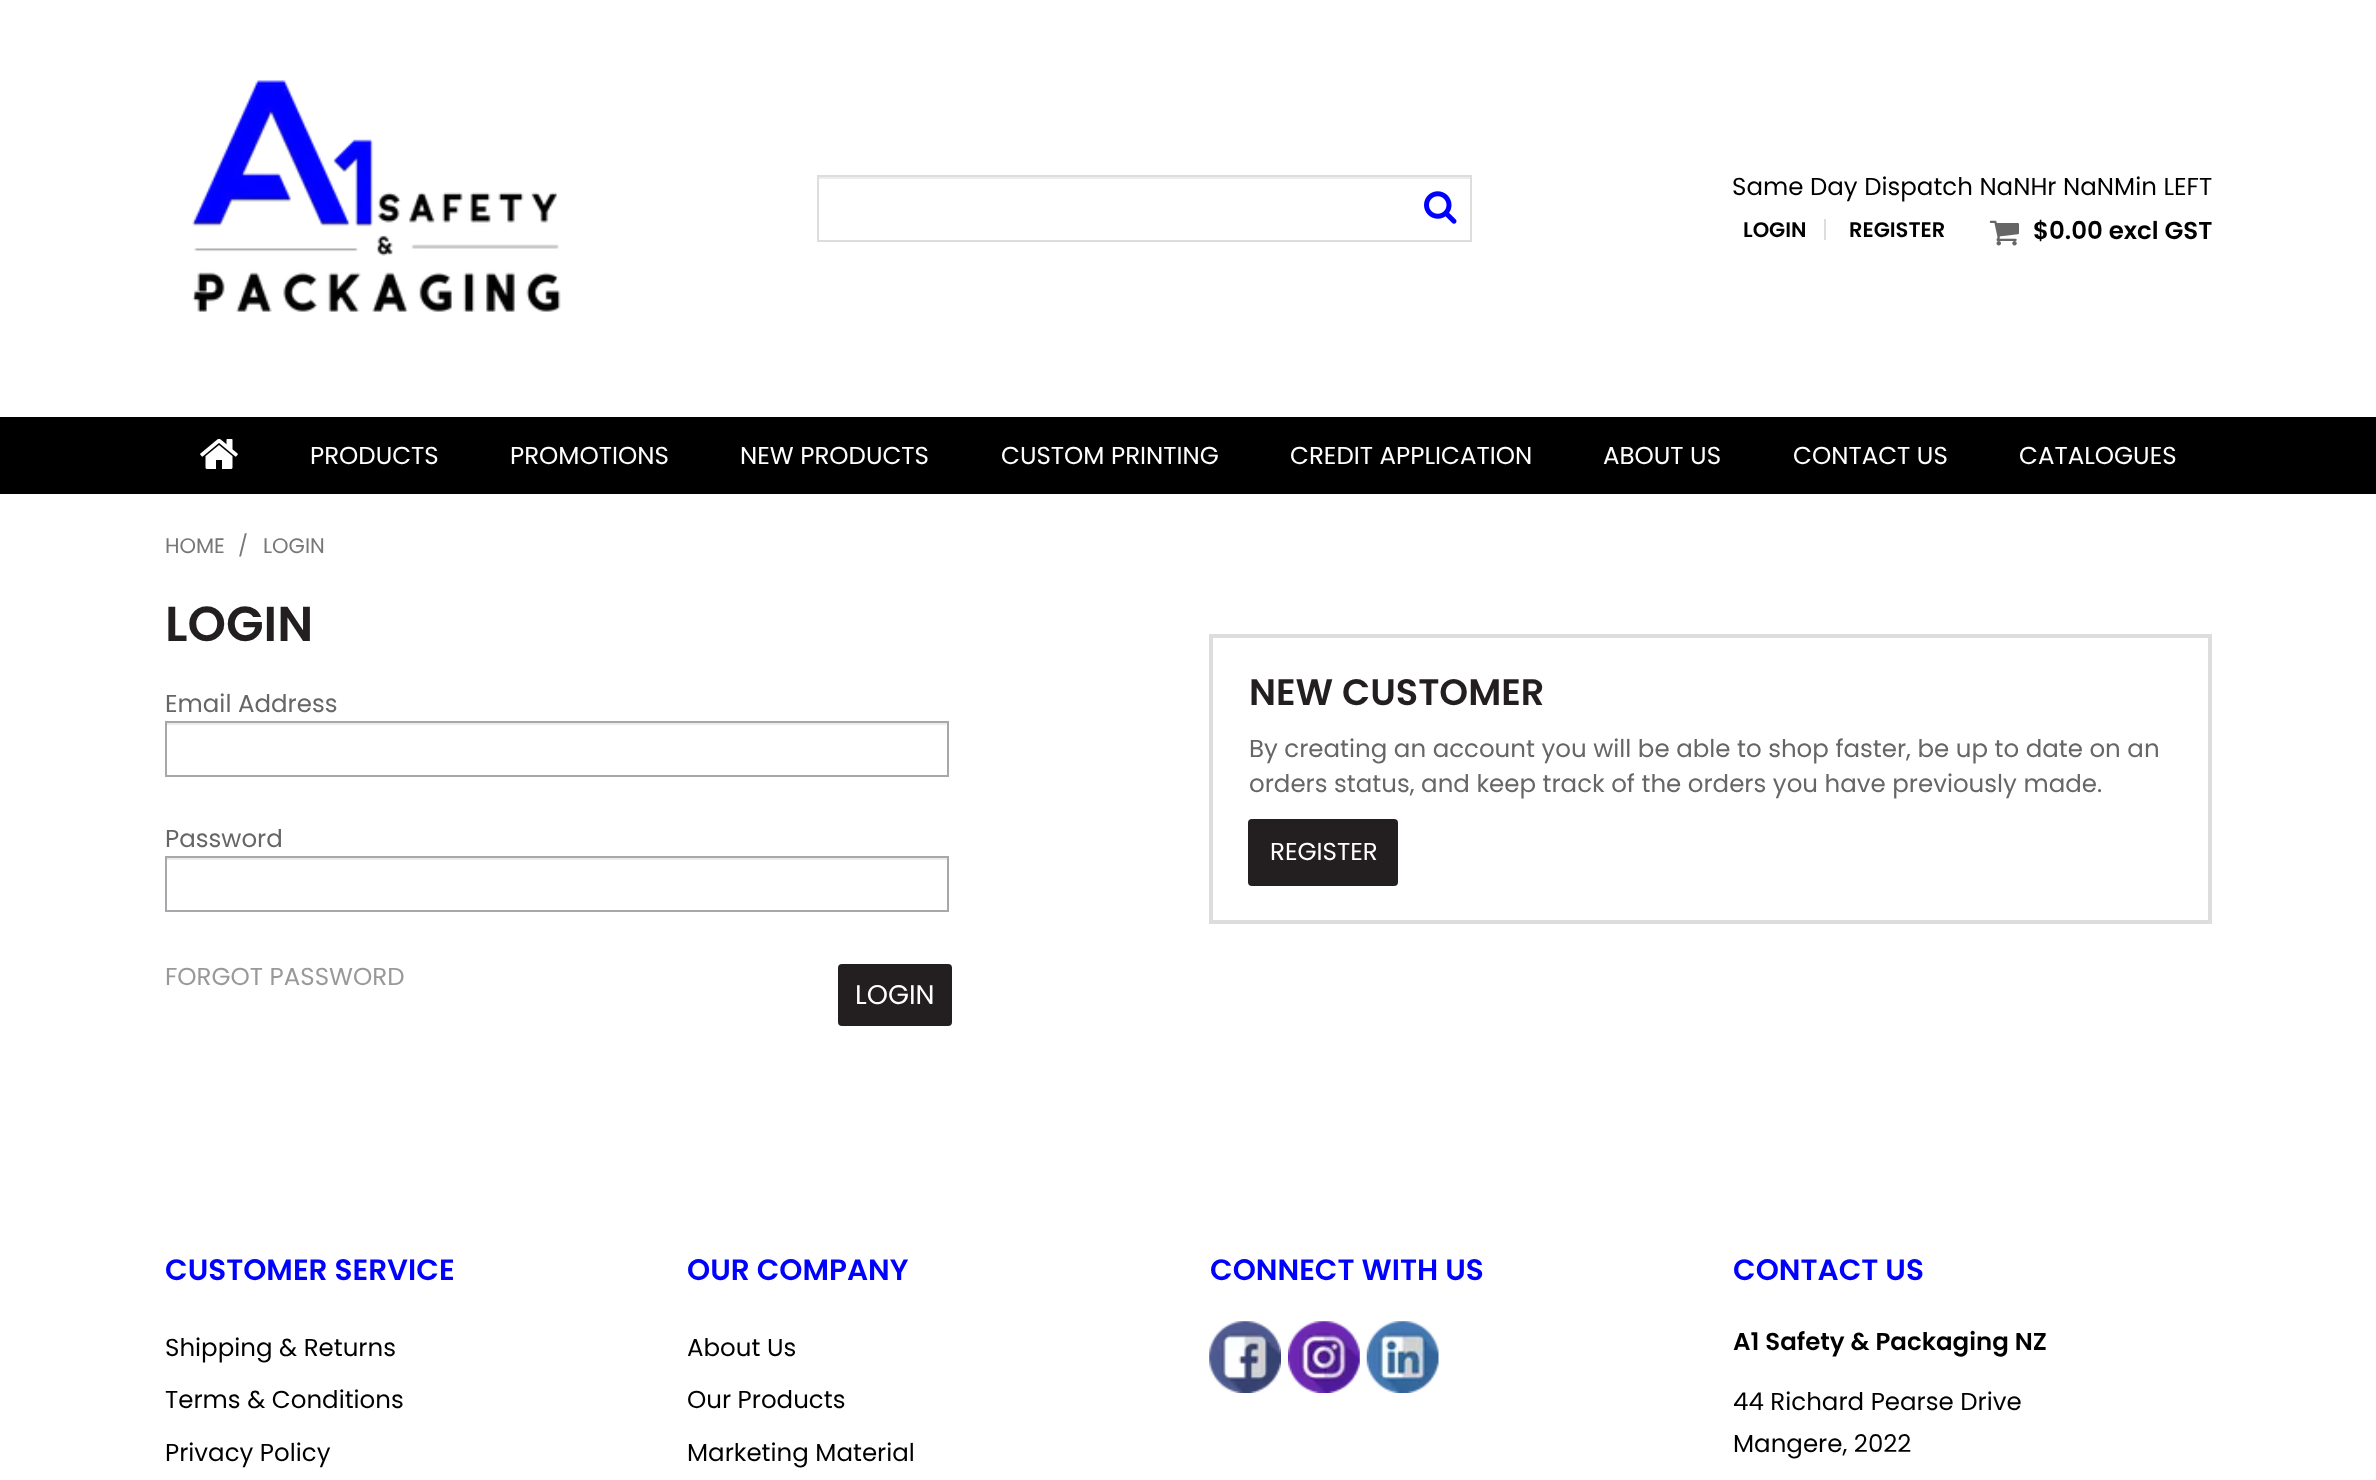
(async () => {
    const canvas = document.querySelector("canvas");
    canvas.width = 2376;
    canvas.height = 1480;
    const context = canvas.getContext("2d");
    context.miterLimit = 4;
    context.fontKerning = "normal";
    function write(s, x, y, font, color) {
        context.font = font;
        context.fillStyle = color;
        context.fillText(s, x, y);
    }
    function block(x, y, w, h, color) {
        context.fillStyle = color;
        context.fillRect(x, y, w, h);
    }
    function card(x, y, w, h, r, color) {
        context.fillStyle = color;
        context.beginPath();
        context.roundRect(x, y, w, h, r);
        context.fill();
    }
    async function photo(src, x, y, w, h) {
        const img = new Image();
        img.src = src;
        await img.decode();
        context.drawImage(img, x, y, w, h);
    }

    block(0, 0, 2376, 1480, "rgb(255, 255, 255)");
    await photo("media/1.png", 192, 80, 369, 232);
    block(819, 177, 651, 2, "rgb(236, 236, 236)");
    context.strokeStyle = "rgb(221, 221, 221)";
    context.lineWidth = 2;
    context.strokeRect(818, 176, 653, 65);
    await photo("media/2.png", 1424, 191, 33, 33);
    write("Same Day Dispatch NaNHr NaNMin LEFT", 1732, 195, "24.5px Poppins", "rgb(0, 0, 0)");
    block(1824, 219, 2, 21, "rgb(221, 221, 221)");
    write("LOGIN", 1743, 237, "600 21px Poppins", "rgb(0, 0, 0)");
    write("REGISTER", 1849, 237, "600 21px Poppins", "rgb(0, 0, 0)");
    await photo("media/3.png", 1989, 220, 30, 26);
    write("$0.00 excl GST", 2033, 239, "600 24.5px Poppins", "rgb(0, 0, 0)");
    block(0, 417, 2376, 77, "rgb(0, 0, 0)");
    await photo("media/4.png", 200, 439, 38, 30);
    write("PRODUCTS", 310, 464, "24.5px Poppins", "rgb(255, 255, 255)");
    write("PROMOTIONS", 510, 464, "24.5px Poppins", "rgb(255, 255, 255)");
    write("NEW PRODUCTS", 740, 464, "24.5px Poppins", "rgb(255, 255, 255)");
    write("CUSTOM PRINTING", 1001, 464, "24.5px Poppins", "rgb(255, 255, 255)");
    write("CREDIT APPLICATION", 1290, 464, "24.5px Poppins", "rgb(255, 255, 255)");
    write("ABOUT US", 1603, 464, "24.5px Poppins", "rgb(255, 255, 255)");
    write("CONTACT US", 1793, 464, "24.5px Poppins", "rgb(255, 255, 255)");
    write("CATALOGUES", 2019, 464, "24.5px Poppins", "rgb(255, 255, 255)");
    write("HOME", 165, 553, "21px Poppins", "rgb(119, 119, 119)");
    write("/", 238, 553, "21px Poppins", "rgb(119, 119, 119)");
    write("LOGIN", 263, 553, "21px Poppins", "rgb(119, 119, 119)");
    write("LOGIN", 165, 641, "600 49px Poppins", "rgb(35, 31, 32)");
    write("Email Address", 165, 712, "24.5px Poppins", "rgb(102, 102, 102)");
    block(166, 723, 781, 2, "rgb(236, 236, 236)");
    context.strokeStyle = "rgb(166, 168, 171)";
    context.strokeRect(166, 722, 782, 54);
    write("Password", 165, 847, "24.5px Poppins", "rgb(102, 102, 102)");
    block(166, 858, 781, 2, "rgb(236, 236, 236)");
    context.strokeRect(166, 857, 782, 54);
    write("FORGOT PASSWORD", 165, 985, "24.5px Poppins", "rgb(153, 153, 153)");
    card(838, 964, 114, 62, 4, "rgb(35, 31, 32)");
    write("LOGIN", 855, 1004, "27px Poppins", "rgb(255, 255, 255)");
    context.strokeStyle = "rgb(221, 221, 221)";
    context.lineWidth = 4;
    context.strokeRect(1211, 636, 999, 286);
    write("NEW CUSTOMER", 1249, 705, "600 36.75px Poppins", "rgb(35, 31, 32)");
    write("By creating an account you will be able to shop faster, be up to date on an", 1249, 757, "24.5px Poppins", "rgb(102, 102, 102)");
    write("orders status, and keep track of the orders you have previously made.", 1249, 792, "24.5px Poppins", "rgb(102, 102, 102)");
    card(1248, 819, 150, 67, 4, "rgb(35, 31, 32)");
    write("REGISTER", 1270, 860, "24.5px Poppins", "rgb(255, 255, 255)");
    write("CUSTOMER SERVICE", 165, 1280, "600 29.5px Poppins", "rgb(0, 0, 255)");
    write("Shipping & Returns", 165, 1356, "24.5px Poppins", "rgb(0, 0, 0)");
    write("Terms & Conditions", 165, 1408, "24.5px Poppins", "rgb(0, 0, 0)");
    write("Privacy Policy", 165, 1461, "24.5px Poppins", "rgb(0, 0, 0)");
    write("OUR COMPANY", 687, 1280, "600 29.5px Poppins", "rgb(0, 0, 255)");
    write("About Us", 687, 1356, "24.5px Poppins", "rgb(0, 0, 0)");
    write("Our Products", 687, 1408, "24.5px Poppins", "rgb(0, 0, 0)");
    write("Marketing Material", 687, 1461, "24.5px Poppins", "rgb(0, 0, 0)");
    write("CONNECT WITH US", 1210, 1280, "600 29.5px Poppins", "rgb(0, 0, 255)");
    await photo("media/5.png", 1209, 1321, 72, 72);
    await photo("media/6.png", 1288, 1321, 72, 72);
    await photo("media/7.png", 1366, 1321, 73, 72);
    write("CONTACT US", 1733, 1280, "600 29.5px Poppins", "rgb(0, 0, 255)");
    write("A1 Safety & Packaging NZ", 1733, 1350, "600 24.5px Poppins", "rgb(0, 0, 0)");
    write("44 Richard Pearse Drive", 1733, 1410, "24.5px Poppins", "rgb(0, 0, 0)");
    write("Mangere, 2022", 1733, 1452, "24.5px Poppins", "rgb(0, 0, 0)");
})();
